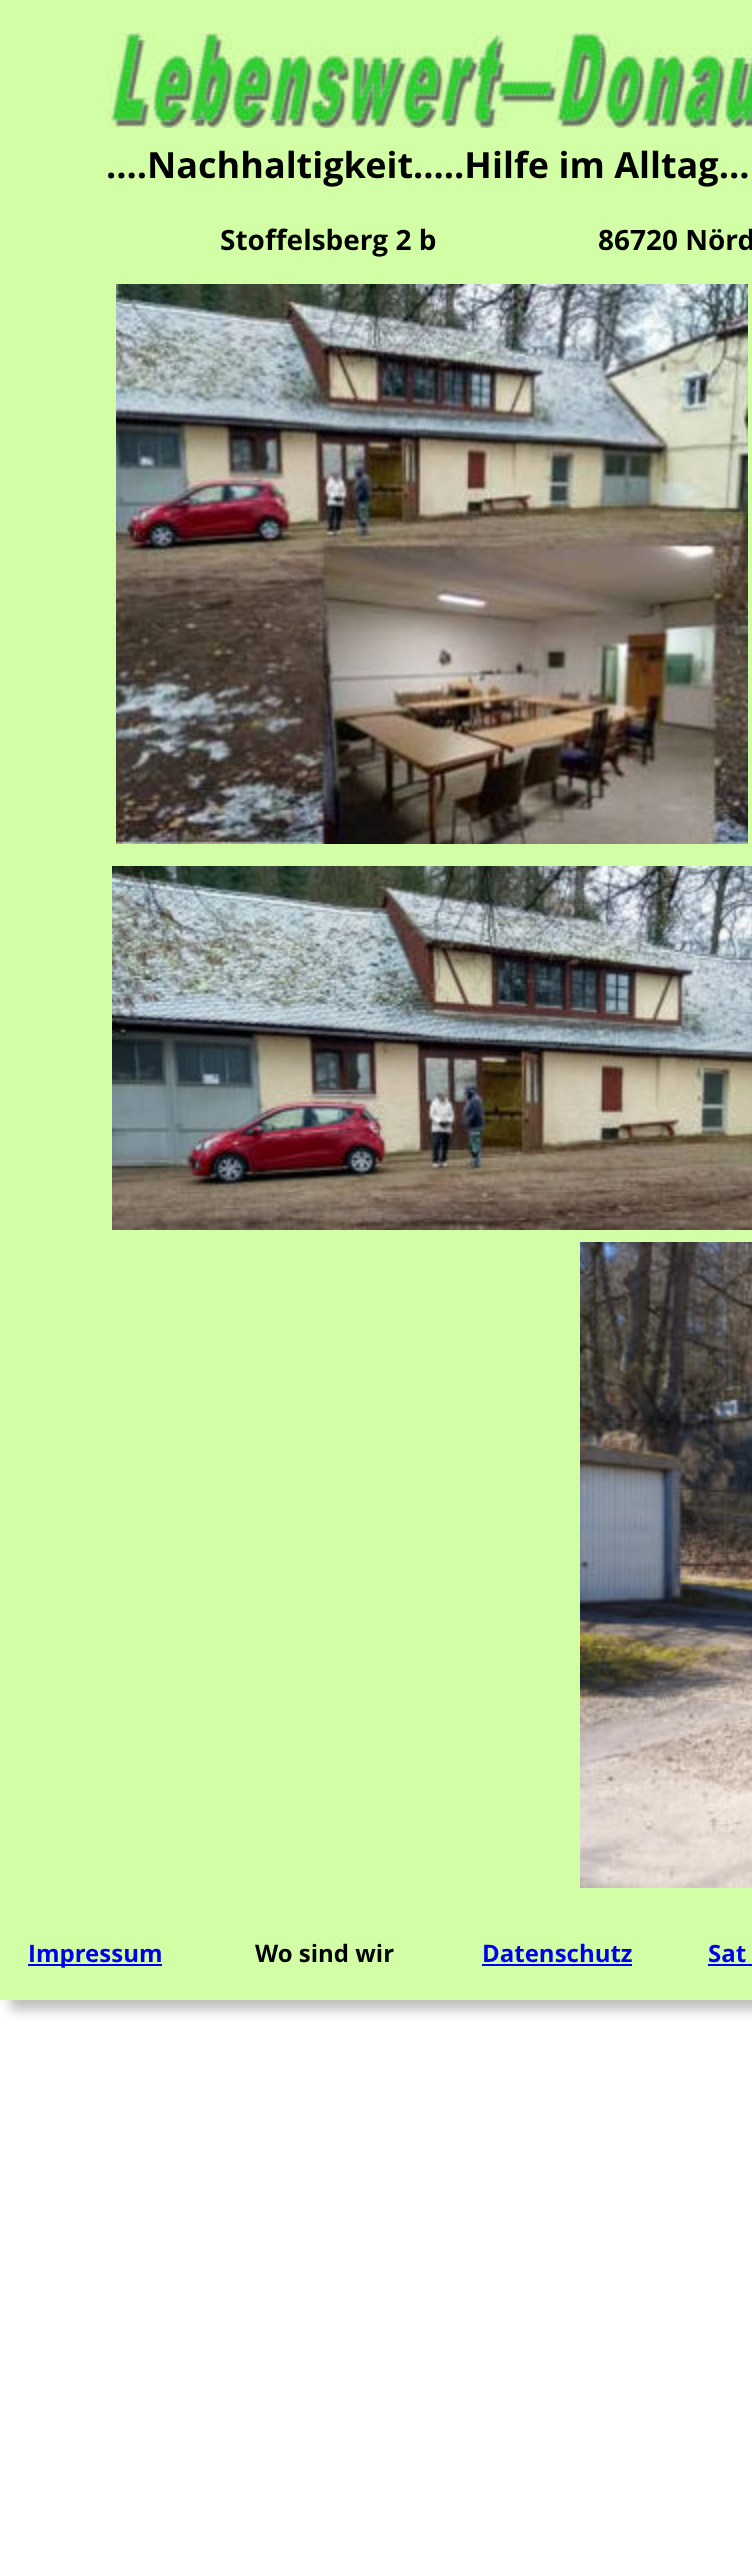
(async () => {
    const canvas = document.querySelector("canvas");
    canvas.width = 752;
    canvas.height = 2551;
    const context = canvas.getContext("2d");
    context.miterLimit = 4;
    context.fontKerning = "normal";
    function write(s, x, y, font, color) {
        context.font = font;
        context.fillStyle = color;
        context.fillText(s, x, y);
    }
    function block(x, y, w, h, color) {
        context.fillStyle = color;
        context.fillRect(x, y, w, h);
    }
    async function photo(src, x, y, w, h) {
        const img = new Image();
        img.src = src;
        await img.decode();
        context.drawImage(img, x, y, w, h);
    }

    block(0, 0, 752, 2551, "rgb(255, 255, 255)");
    context.fillStyle = "rgba(0, 0, 0, 0.25)";
    context.filter = "blur(6px)";
    context.beginPath();
    context.rect(10, 10, 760, 2000);
    context.fill();
    context.filter = "none";
    block(0, 0, 752, 2000, "rgb(210, 255, 165)");
    await photo("media/1.png", 106, 32, 646, 96);
    write("….Nachhaltigkeit…..Hilfe im Alltag…", 106, 178, "bold 36px Open Sans", "rgb(0, 0, 0)");
    write("Stoffelsberg 2 b", 220, 250, "bold 28px Open Sans", "rgb(0, 0, 0)");
    write("86720 Nörd", 598, 250, "bold 28px Open Sans", "rgb(0, 0, 0)");
    await photo("media/2.png", 116, 284, 632, 560);
    await photo("media/3.png", 112, 866, 640, 364);
    await photo("media/4.png", 580, 1242, 172, 646);
    block(28, 1964, 134, 2, "rgb(0, 0, 238)");
    write("Impressum", 28, 1962, "bold 24px Open Sans", "rgb(0, 0, 238)");
    write("Wo sind wir", 255, 1962, "bold 24px Open Sans", "rgb(0, 0, 0)");
    write("Datenschutz", 482, 1962, "bold 24px Open Sans", "rgb(0, 0, 238)");
    block(482, 1964, 150, 2, "rgb(0, 0, 238)");
    write("Sat", 708, 1962, "bold 24px Open Sans", "rgb(0, 0, 238)");
    block(708, 1964, 44, 2, "rgb(0, 0, 238)");
})();
